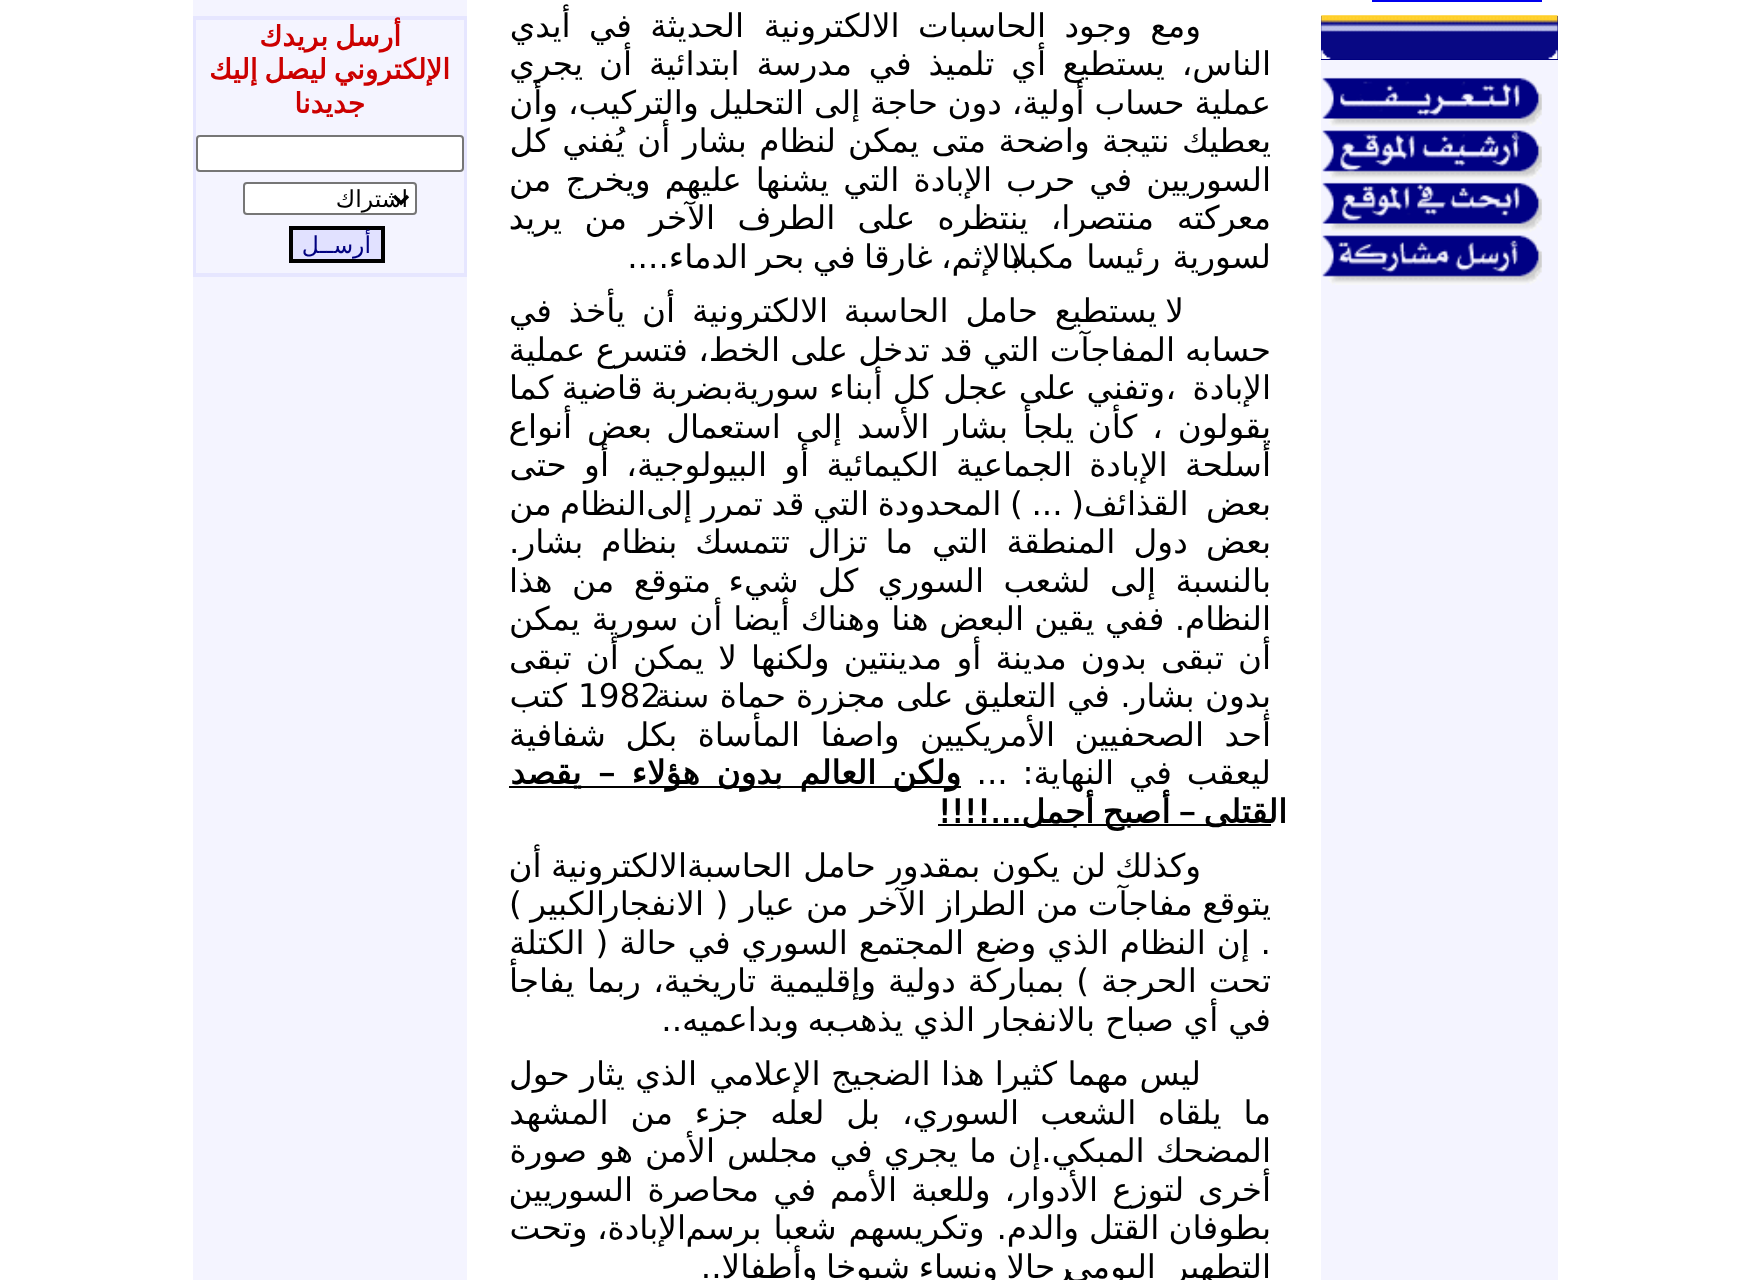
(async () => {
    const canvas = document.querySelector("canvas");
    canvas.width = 1749;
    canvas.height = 1280;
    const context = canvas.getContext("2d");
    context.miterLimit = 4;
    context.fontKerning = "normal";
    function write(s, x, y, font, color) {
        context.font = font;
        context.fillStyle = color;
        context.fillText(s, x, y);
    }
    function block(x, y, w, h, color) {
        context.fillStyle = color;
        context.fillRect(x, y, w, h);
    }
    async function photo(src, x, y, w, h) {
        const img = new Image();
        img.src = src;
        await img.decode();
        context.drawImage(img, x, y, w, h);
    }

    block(0, 0, 1749, 1280, "rgb(255, 255, 255)");
    context.direction = "rtl";
    write("ومع", 1201, 37, "32.7px DejaVu Sans", "rgb(0, 0, 0)");
    context.wordSpacing = "8px";
    write("وجود الحاسبات الالكترونية", 1132, 37, "32.7px DejaVu Sans", "rgb(0, 0, 0)");
    write("الحديثة في أيدي", 744, 37, "32.7px DejaVu Sans", "rgb(0, 0, 0)");
    context.wordSpacing = "6.5px";
    write("الناس، يستطيع", 1271, 75, "32.7px DejaVu Sans", "rgb(0, 0, 0)");
    write("أي تلميذ في مدرسة ابتدائية أن", 1046, 75, "32.7px DejaVu Sans", "rgb(0, 0, 0)");
    context.wordSpacing = "0px";
    write("يجري", 583, 75, "32.7px DejaVu Sans", "rgb(0, 0, 0)");
    context.wordSpacing = "-0.5px";
    write("عملية حساب أولية، دون", 1271, 114, "32.7px DejaVu Sans", "rgb(0, 0, 0)");
    write("حاجة إلى التحليل والتركيب، وأن", 938, 114, "32.7px DejaVu Sans", "rgb(0, 0, 0)");
    context.wordSpacing = "2px";
    write("يعطيك نتيجة واضحة متى يمكن", 1271, 152, "32.7px DejaVu Sans", "rgb(0, 0, 0)");
    write("لنظام بشار أن يُفني كل", 836, 152, "32.7px DejaVu Sans", "rgb(0, 0, 0)");
    context.wordSpacing = "3.75px";
    write("السوريين في حرب الإبادة التي", 1271, 191, "32.7px DejaVu Sans", "rgb(0, 0, 0)");
    write("يشنها عليهم ويخرج من", 829, 191, "32.7px DejaVu Sans", "rgb(0, 0, 0)");
    context.wordSpacing = "0px";
    write("معركته", 1271, 229, "32.7px DejaVu Sans", "rgb(0, 0, 0)");
    context.wordSpacing = "12px";
    write("منتصرا، ينتظره على الطرف الآخر", 1154, 229, "32.7px DejaVu Sans", "rgb(0, 0, 0)");
    write("من يريد", 627, 229, "32.7px DejaVu Sans", "rgb(0, 0, 0)");
    context.wordSpacing = "2px";
    write("لسورية رئيسا مكبلا", 1271, 268, "32.7px DejaVu Sans", "rgb(0, 0, 0)");
    context.wordSpacing = "-2px";
    write("بالإثم، غارقا في بحر الدماء....", 1020, 268, "32.7px DejaVu Sans", "rgb(0, 0, 0)");
    context.wordSpacing = "0px";
    write("لا", 1184, 322, "32.7px DejaVu Sans", "rgb(0, 0, 0)");
    context.wordSpacing = "6.5px";
    write("يستطيع حامل الحاسبة", 1157, 322, "32.7px DejaVu Sans", "rgb(0, 0, 0)");
    write("الالكترونية أن يأخذ في", 828, 322, "32.7px DejaVu Sans", "rgb(0, 0, 0)");
    context.wordSpacing = "0px";
    write("حسابه", 1271, 361, "32.7px DejaVu Sans", "rgb(0, 0, 0)");
    write("المفاجآت التي قد تدخل على", 1175, 361, "32.7px DejaVu Sans", "rgb(0, 0, 0)");
    write("الخط، فتسرع عملية", 780, 361, "32.7px DejaVu Sans", "rgb(0, 0, 0)");
    context.wordSpacing = "6px";
    write("الإبادة ،", 1271, 399, "32.7px DejaVu Sans", "rgb(0, 0, 0)");
    context.wordSpacing = "-0.25px";
    write("وتفني على عجل كل أبناء سورية", 1165, 399, "32.7px DejaVu Sans", "rgb(0, 0, 0)");
    context.wordSpacing = "-2px";
    write("بضربة قاضية كما", 733, 399, "32.7px DejaVu Sans", "rgb(0, 0, 0)");
    context.wordSpacing = "4.5px";
    write("يقولون ، كأن", 1271, 438, "32.7px DejaVu Sans", "rgb(0, 0, 0)");
    write("يلجأ بشار الأسد إلى استعمال", 1074, 438, "32.7px DejaVu Sans", "rgb(0, 0, 0)");
    write("بعض أنواع", 652, 438, "32.7px DejaVu Sans", "rgb(0, 0, 0)");
    context.wordSpacing = "7px";
    write("أسلحة الإبادة", 1271, 476, "32.7px DejaVu Sans", "rgb(0, 0, 0)");
    write("الجماعية الكيمائية أو", 1072, 476, "32.7px DejaVu Sans", "rgb(0, 0, 0)");
    write("البيولوجية، أو حتى", 767, 476, "32.7px DejaVu Sans", "rgb(0, 0, 0)");
    write("بعض القذائف", 1271, 515, "32.7px DejaVu Sans", "rgb(0, 0, 0)");
    context.wordSpacing = "-1.75px";
    write("( ... ) المحدودة التي قد تمرر إلى", 1084, 515, "32.7px DejaVu Sans", "rgb(0, 0, 0)");
    context.wordSpacing = "-2px";
    write("النظام من", 646, 515, "32.7px DejaVu Sans", "rgb(0, 0, 0)");
    context.wordSpacing = "8px";
    write("بعض دول المنطقة التي", 1271, 553, "32.7px DejaVu Sans", "rgb(0, 0, 0)");
    context.wordSpacing = "7.5px";
    write("ما تزال تتمسك بنظام بشار.", 913, 553, "32.7px DejaVu Sans", "rgb(0, 0, 0)");
    context.wordSpacing = "9px";
    write("بالنسبة إلى لشعب السوري كل شيء", 1271, 592, "32.7px DejaVu Sans", "rgb(0, 0, 0)");
    write("متوقع من هذا", 711, 592, "32.7px DejaVu Sans", "rgb(0, 0, 0)");
    context.wordSpacing = "0px";
    write("النظام. ففي يقين", 1271, 630, "32.7px DejaVu Sans", "rgb(0, 0, 0)");
    context.wordSpacing = "0.5px";
    write("البعض هنا وهناك أيضا أن سورية", 1024, 630, "32.7px DejaVu Sans", "rgb(0, 0, 0)");
    context.wordSpacing = "0px";
    write("يمكن", 580, 630, "32.7px DejaVu Sans", "rgb(0, 0, 0)");
    context.wordSpacing = "3.75px";
    write("أن تبقى بدون مدينة أو", 1271, 669, "32.7px DejaVu Sans", "rgb(0, 0, 0)");
    write("مدينتين ولكنها لا يمكن أن تبقى", 942, 669, "32.7px DejaVu Sans", "rgb(0, 0, 0)");
    context.wordSpacing = "0px";
    write("بدون بشار. في التعليق على مجزرة", 1271, 707, "32.7px DejaVu Sans", "rgb(0, 0, 0)");
    context.direction = "ltr";
    write("1982", 578, 707, "32.7px DejaVu Sans", "rgb(0, 0, 0)");
    context.direction = "rtl";
    write("حماة سنة", 786, 707, "32.7px DejaVu Sans", "rgb(0, 0, 0)");
    write("كتب", 567, 707, "32.7px DejaVu Sans", "rgb(0, 0, 0)");
    context.wordSpacing = "10px";
    write("أحد الصحفيين", 1271, 746, "32.7px DejaVu Sans", "rgb(0, 0, 0)");
    write("الأمريكيين واصفا المأساة بكل", 1055, 746, "32.7px DejaVu Sans", "rgb(0, 0, 0)");
    context.wordSpacing = "0px";
    write("شفافية", 606, 746, "32.7px DejaVu Sans", "rgb(0, 0, 0)");
    context.wordSpacing = "4.5px";
    write("ليعقب في النهاية: ...", 1271, 784, "32.7px DejaVu Sans", "rgb(0, 0, 0)");
    block(509, 786, 452, 2, "rgb(0, 0, 0)");
    context.wordSpacing = "0px";
    write("ولكن", 961, 784, "bold 32.7px DejaVu Sans", "rgb(0, 0, 0)");
    context.wordSpacing = "6.5px";
    write("العالم بدون هؤلاء – يقصد", 876, 784, "bold 32.7px DejaVu Sans", "rgb(0, 0, 0)");
    block(938, 824, 333, 2, "rgb(0, 0, 0)");
    context.wordSpacing = "-2px";
    write("القتلى – أصبح أجمل...!!!!", 1287, 823, "bold 32.7px DejaVu Sans", "rgb(0, 0, 0)");
    context.wordSpacing = "0px";
    write("وكذلك", 1201, 877, "32.7px DejaVu Sans", "rgb(0, 0, 0)");
    context.wordSpacing = "1px";
    write("لن يكون بمقدور حامل الحاسبة", 1106, 877, "32.7px DejaVu Sans", "rgb(0, 0, 0)");
    context.wordSpacing = "-1px";
    write("الالكترونية أن", 687, 877, "32.7px DejaVu Sans", "rgb(0, 0, 0)");
    write("يتوقع مفاجآت من", 1271, 915, "32.7px DejaVu Sans", "rgb(0, 0, 0)");
    context.wordSpacing = "1px";
    write("الطراز الآخر من عيار ( الانفجار", 1026, 915, "32.7px DejaVu Sans", "rgb(0, 0, 0)");
    context.wordSpacing = "-2px";
    write("الكبير )", 605, 915, "32.7px DejaVu Sans", "rgb(0, 0, 0)");
    context.wordSpacing = "0.5px";
    write(". إن النظام الذي وضع", 1271, 954, "32.7px DejaVu Sans", "rgb(0, 0, 0)");
    write("المجتمع السوري في حالة ( الكتلة", 964, 954, "32.7px DejaVu Sans", "rgb(0, 0, 0)");
    context.wordSpacing = "1.5px";
    write("تحت الحرجة ) بمباركة دولية", 1271, 992, "32.7px DejaVu Sans", "rgb(0, 0, 0)");
    context.wordSpacing = "2px";
    write("وإقليمية تاريخية، ربما يفاجأ", 876, 992, "32.7px DejaVu Sans", "rgb(0, 0, 0)");
    context.wordSpacing = "-0.5px";
    write("في أي صباح بالانفجار الذي يذهب", 1271, 1031, "32.7px DejaVu Sans", "rgb(0, 0, 0)");
    context.wordSpacing = "-2px";
    write("به وبداعميه..", 834, 1031, "32.7px DejaVu Sans", "rgb(0, 0, 0)");
    context.wordSpacing = "0px";
    write("ليس", 1201, 1085, "32.7px DejaVu Sans", "rgb(0, 0, 0)");
    write("مهما كثيرا هذا الضجيج الإعلامي", 1129, 1085, "32.7px DejaVu Sans", "rgb(0, 0, 0)");
    write("الذي يثار حول", 697, 1085, "32.7px DejaVu Sans", "rgb(0, 0, 0)");
    context.wordSpacing = "11.5px";
    write("ما يلقاه الشعب", 1271, 1124, "32.7px DejaVu Sans", "rgb(0, 0, 0)");
    write("السوري، بل لعله جزء من المشهد", 1019, 1124, "32.7px DejaVu Sans", "rgb(0, 0, 0)");
    context.wordSpacing = "1px";
    write("المضحك المبكي.إن ما يجري في", 1271, 1162, "32.7px DejaVu Sans", "rgb(0, 0, 0)");
    context.wordSpacing = "1.5px";
    write("مجلس الأمن هو صورة", 818, 1162, "32.7px DejaVu Sans", "rgb(0, 0, 0)");
    context.wordSpacing = "3.5px";
    write("أخرى لتوزع", 1271, 1201, "32.7px DejaVu Sans", "rgb(0, 0, 0)");
    write("الأدوار، وللعبة الأمم في", 1098, 1201, "32.7px DejaVu Sans", "rgb(0, 0, 0)");
    context.wordSpacing = "4px";
    write("محاصرة السوريين", 759, 1201, "32.7px DejaVu Sans", "rgb(0, 0, 0)");
    context.wordSpacing = "-1px";
    write("بطوفان القتل", 1271, 1239, "32.7px DejaVu Sans", "rgb(0, 0, 0)");
    context.wordSpacing = "1.5px";
    write("والدم. وتكريسهم شعبا برسم", 1079, 1239, "32.7px DejaVu Sans", "rgb(0, 0, 0)");
    context.wordSpacing = "-1px";
    write("الإبادة، وتحت", 686, 1239, "32.7px DejaVu Sans", "rgb(0, 0, 0)");
    context.wordSpacing = "6px";
    write("التطهير اليومي", 1271, 1278, "32.7px DejaVu Sans", "rgb(0, 0, 0)");
    context.wordSpacing = "-2px";
    write("رجالا ونساء شيوخا وأطفالا..", 1071, 1278, "32.7px DejaVu Sans", "rgb(0, 0, 0)");
    block(1321, 60, 237, 1220, "rgb(244, 244, 255)");
    block(1372, 0, 170, 2, "rgb(0, 0, 238)");
    block(1321, 16, 237, 44, "rgb(0, 0, 128)");
    await photo("media/1.png", 1321, 15, 237, 44);
    await photo("media/2.png", 1322, 77, 220, 50);
    await photo("media/3.png", 1322, 130, 220, 50);
    await photo("media/4.png", 1322, 182, 220, 50);
    await photo("media/5.png", 1322, 235, 220, 50);
    block(193, 0, 274, 1280, "rgb(244, 244, 255)");
    context.strokeStyle = "rgb(230, 230, 255)";
    context.lineWidth = 2;
    context.strokeRect(194, 17, 272, 259);
    context.strokeRect(195, 19, 270, 255);
    context.wordSpacing = "0px";
    write("أرسل", 401, 46, "bold 28px DejaVu Sans", "rgb(204, 0, 0)");
    write("بريدك", 328, 46, "bold 28px DejaVu Sans", "rgb(204, 0, 0)");
    context.wordSpacing = "-2px";
    write("الإلكتروني ليصل إليك", 450, 79, "bold 28px DejaVu Sans", "rgb(204, 0, 0)");
    context.wordSpacing = "0px";
    write("جديدنا", 365, 113, "bold 28px DejaVu Sans", "rgb(204, 0, 0)");
    context.fillStyle = "rgb(255, 255, 255)";
    context.beginPath();
    context.roundRect(197, 136, 266, 35, 3);
    context.fill();
    context.strokeStyle = "rgb(118, 118, 118)";
    context.stroke();
    context.beginPath();
    context.roundRect(244, 183, 172, 31, 3);
    context.fill();
    context.stroke();
    context.beginPath();
    context.moveTo(394, 196);
    context.lineTo(401, 203);
    context.lineTo(408, 196);
    context.strokeStyle = "rgb(0, 0, 0)";
    context.lineWidth = 3.5;
    context.stroke();
    write("اشتراك", 408, 207, "23.5px DejaVu Sans", "rgb(0, 0, 0)");
    context.fillStyle = "rgb(225, 225, 255)";
    context.beginPath();
    context.rect(291, 228, 92, 33);
    context.fill();
    context.lineWidth = 4;
    context.stroke();
    write("أرســل", 371, 253, "23.5px DejaVu Sans", "rgb(0, 0, 128)");
})();
